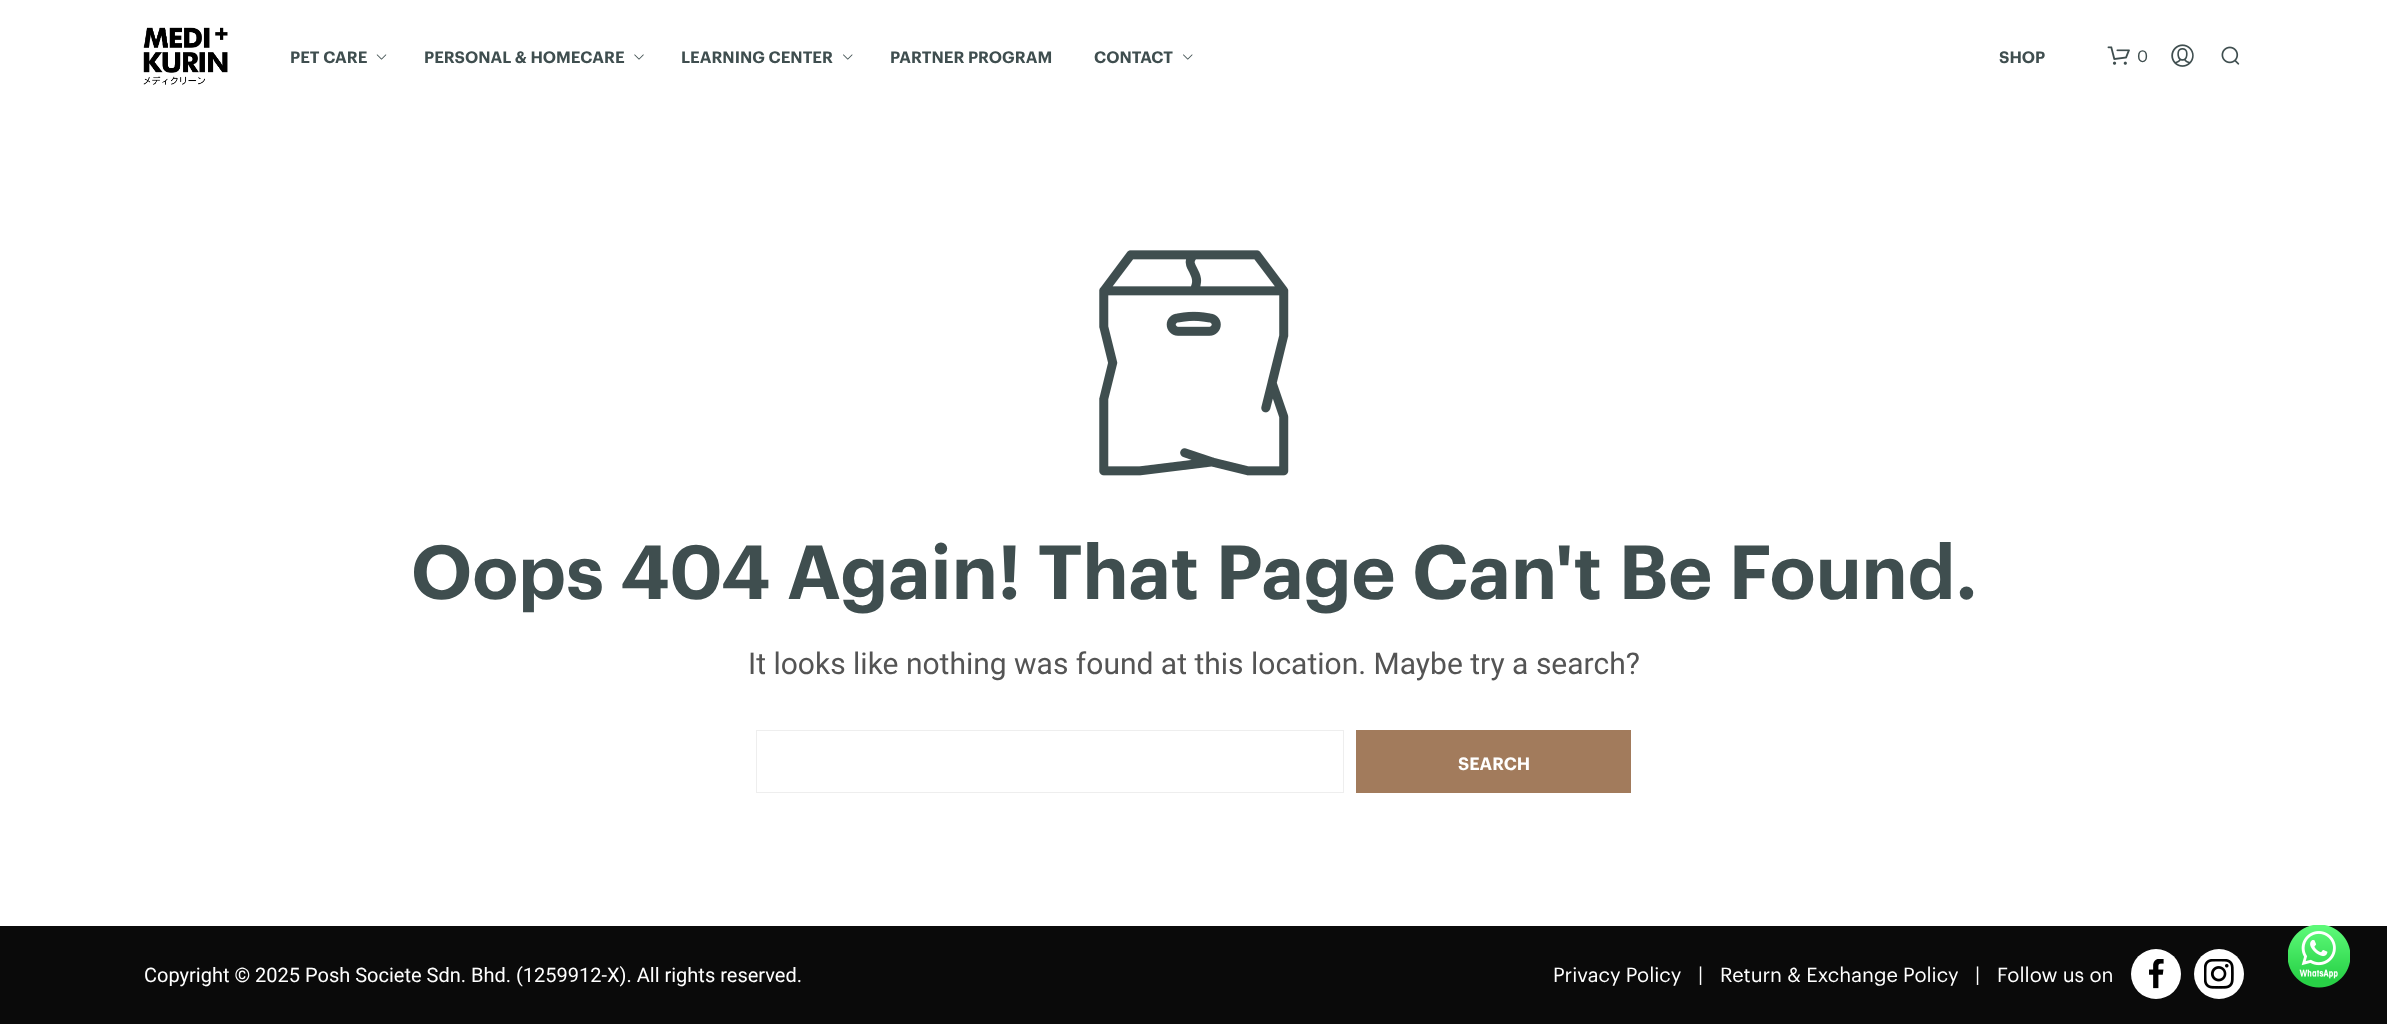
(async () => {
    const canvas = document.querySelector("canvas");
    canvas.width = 2387;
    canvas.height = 1024;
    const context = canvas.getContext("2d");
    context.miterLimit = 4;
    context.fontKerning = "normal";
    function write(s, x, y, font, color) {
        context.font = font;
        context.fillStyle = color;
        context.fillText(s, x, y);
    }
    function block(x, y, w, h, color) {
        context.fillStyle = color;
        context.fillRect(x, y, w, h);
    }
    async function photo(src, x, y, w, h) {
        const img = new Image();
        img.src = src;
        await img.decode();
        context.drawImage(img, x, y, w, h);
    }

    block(0, 0, 2387, 1024, "rgb(255, 255, 255)");
    await photo("media/1.png", 143, 27, 85, 58);
    write("PET CARE", 290, 63, "600 16.25px Graphik", "rgb(63, 78, 79)");
    await photo("media/2.png", 376, 54, 11, 6);
    write("PERSONAL & HOMECARE", 424, 63, "600 16.25px Graphik", "rgb(63, 78, 79)");
    await photo("media/3.png", 634, 54, 10, 6);
    write("LEARNING CENTER", 681, 63, "600 16.25px Graphik", "rgb(63, 78, 79)");
    await photo("media/4.png", 843, 54, 10, 6);
    write("PARTNER PROGRAM", 890, 63, "600 16.25px Graphik", "rgb(63, 78, 79)");
    write("CONTACT", 1094, 63, "600 16.25px Graphik", "rgb(63, 78, 79)");
    await photo("media/4.png", 1183, 54, 10, 6);
    write("SHOP", 1999, 63, "600 16.25px Graphik", "rgb(63, 78, 79)");
    await photo("media/5.png", 2107, 46, 23, 19);
    write("0", 2137, 62, "16.25px Graphik", "rgb(63, 78, 79)");
    await photo("media/6.png", 2171, 44, 23, 23);
    await photo("media/7.png", 2221, 46, 19, 19);
    await photo("media/8.png", 1099, 250, 190, 226);
    write("Oops 404 Again! That Page Can't Be Found.", 411, 599, "600 75px Graphik", "rgb(63, 78, 79)");
    write("It looks like nothing was found at this location. Maybe try a search?", 748, 674, "30px Roboto", "rgb(84, 84, 84)");
    context.strokeStyle = "rgb(238, 238, 238)";
    context.strokeRect(756.5, 730.5, 587, 62);
    block(1356, 730, 275, 63, "rgb(162, 123, 92)");
    write("SEARCH", 1458, 770, "600 17.5px Graphik", "rgb(255, 255, 255)");
    block(0, 926, 2387, 98, "rgb(10, 10, 10)");
    write("Copyright © 2025 Posh Societe Sdn. Bhd. (1259912-X). All rights reserved.", 144, 982, "20px Roboto", "rgb(255, 255, 255)");
    write("Privacy Policy", 1553, 982, "20px Graphik", "rgb(255, 255, 255)");
    write("|", 1698, 982, "20px Graphik", "rgb(255, 255, 255)");
    write("Return & Exchange Policy", 1720, 982, "20px Graphik", "rgb(255, 255, 255)");
    write("|", 1975, 982, "20px Graphik", "rgb(255, 255, 255)");
    write("Follow us on", 1997, 982, "20px Graphik", "rgb(255, 255, 255)");
    context.beginPath();
    context.arc(2156, 974, 25, 0, Math.PI * 2);
    context.fill();
    await photo("media/9.png", 2149, 959, 15, 30);
    context.beginPath();
    context.arc(2219, 974, 25, 0, Math.PI * 2);
    context.fill();
    await photo("media/10.png", 2204, 959, 30, 30);
    await photo("media/11.png", 2288, 925, 62, 63);
})();
